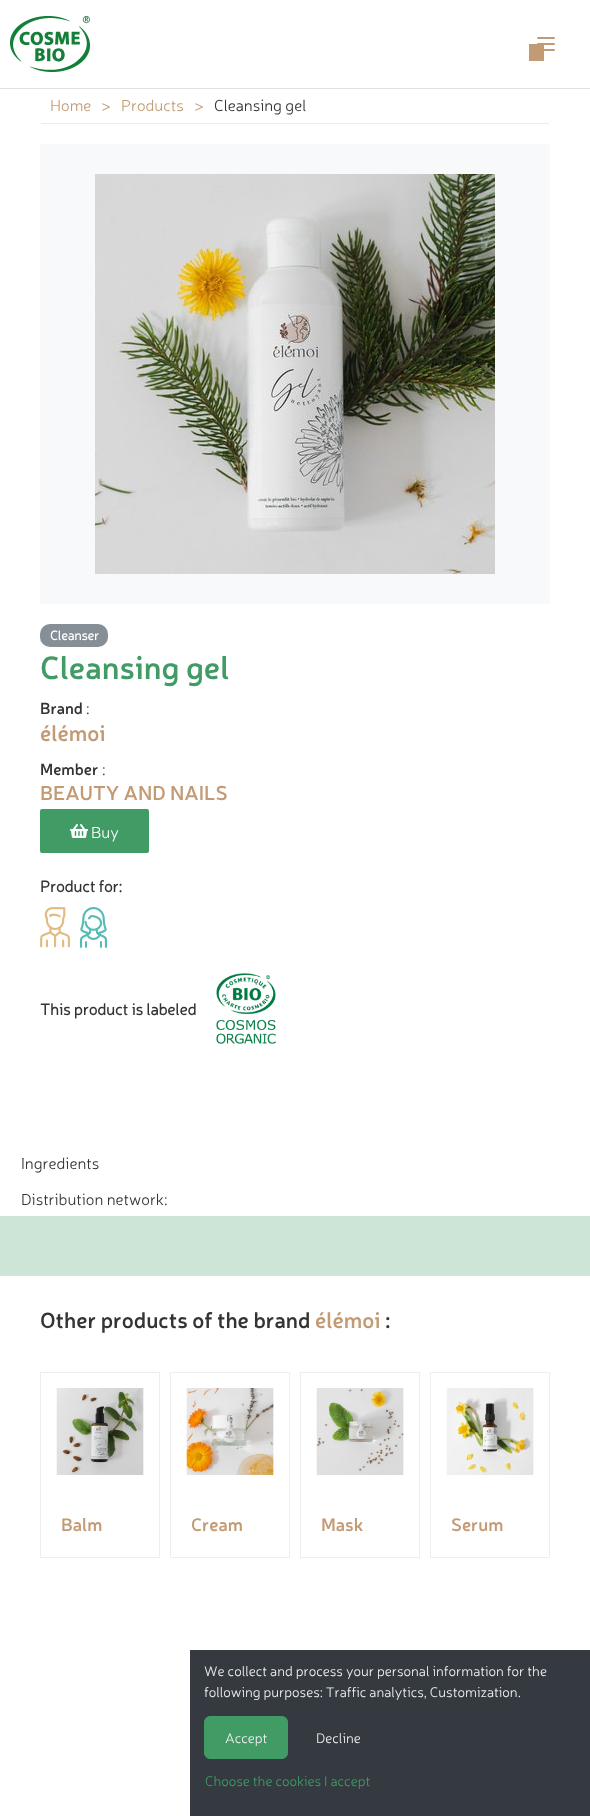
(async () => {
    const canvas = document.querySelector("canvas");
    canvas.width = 590;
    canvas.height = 1816;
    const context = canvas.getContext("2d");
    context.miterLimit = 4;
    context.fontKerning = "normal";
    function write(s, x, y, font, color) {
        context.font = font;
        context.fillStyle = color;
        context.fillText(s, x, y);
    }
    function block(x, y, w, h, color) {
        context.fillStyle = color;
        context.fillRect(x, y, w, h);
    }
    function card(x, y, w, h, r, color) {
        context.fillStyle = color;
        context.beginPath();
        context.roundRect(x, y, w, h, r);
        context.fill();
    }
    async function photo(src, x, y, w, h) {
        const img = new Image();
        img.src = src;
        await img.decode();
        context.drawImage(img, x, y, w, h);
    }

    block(0, 0, 590, 1816, "rgb(255, 255, 255)");
    block(0, 88, 590, 1, "rgb(222, 226, 230)");
    await photo("media/1.png", 10, 16, 80, 56);
    card(537, 43, 18, 2, 1, "rgb(194, 154, 116)");
    card(537, 49, 18, 2, 1, "rgb(194, 154, 116)");
    block(529, 44, 15, 17, "rgb(194, 154, 116)");
    card(537, 37, 18, 2, 1, "rgb(194, 154, 116)");
    block(41, 123, 508, 1, "rgb(233, 236, 239)");
    write("Home", 50, 111, "300 16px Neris", "rgb(194, 154, 116)");
    write(">", 101, 111, "300 16px Neris", "rgb(194, 154, 116)");
    write("Products", 121, 111, "300 16px Neris", "rgb(194, 154, 116)");
    write(">", 194, 111, "300 16px Neris", "rgb(194, 154, 116)");
    write("Cleansing gel", 214, 111, "300 16px Neris", "rgb(52, 52, 52)");
    block(40, 144, 510, 460, "rgb(248, 249, 250)");
    await photo("media/2.png", 95, 174, 400, 400);
    card(40, 624, 68, 23, 10, "rgb(134, 142, 150)");
    write("Cleanser", 50, 640, "bold 13px Neris", "rgb(255, 255, 255)");
    write("Cleansing gel", 40, 679, "600 32px Neris", "rgb(64, 155, 101)");
    write("Brand", 40, 714, "600 16px Neris", "rgb(52, 52, 52)");
    write(":", 86, 714, "300 16px Neris", "rgb(52, 52, 52)");
    write("élémoi", 40, 741, "600 22px Neris", "rgb(194, 154, 116)");
    write("Member", 40, 775, "600 16px Neris", "rgb(52, 52, 52)");
    write(":", 102, 775, "300 16px Neris", "rgb(52, 52, 52)");
    write("BEAUTY AND NAILS", 40, 800, "600 20px Neris", "rgb(194, 154, 116)");
    card(40, 809, 109, 44, 2, "rgb(64, 155, 101)");
    await photo("media/3.png", 70, 824, 18, 14);
    write("Buy", 91, 838, "300 16px Neris", "rgb(255, 255, 255)");
    write("Product for:", 40, 892, "bold 16px Neris", "rgb(52, 52, 52)");
    await photo("media/4.png", 40, 907, 30, 41);
    await photo("media/5.png", 80, 907, 27, 41);
    write("This product is labeled", 40, 1015, "bold 16px Neris", "rgb(52, 52, 52)");
    await photo("media/6.png", 216, 973, 60, 71);
    write("Ingredients", 21, 1169, "300 16px Neris", "rgb(52, 52, 52)");
    write("Distribution network:", 21, 1205, "300 16px Neris", "rgb(52, 52, 52)");
    block(0, 1216, 590, 60, "rgb(204, 229, 214)");
    write("Other products of the brand", 40, 1328, "600 22px Neris", "rgb(52, 52, 52)");
    write("élémoi", 315, 1328, "600 22px Neris", "rgb(194, 154, 116)");
    write(":", 385, 1328, "600 22px Neris", "rgb(52, 52, 52)");
    context.strokeStyle = "rgb(238, 238, 238)";
    context.strokeRect(40.5, 1372.5, 119, 185);
    await photo("media/7.png", 56, 1388, 88, 87);
    write("Balm", 61, 1531, "600 18px Neris", "rgb(194, 154, 116)");
    context.strokeRect(170.5, 1372.5, 119, 185);
    await photo("media/8.png", 186, 1388, 88, 87);
    write("Cream", 191, 1531, "600 18px Neris", "rgb(194, 154, 116)");
    context.strokeRect(300.5, 1372.5, 119, 185);
    await photo("media/9.png", 316, 1388, 88, 87);
    write("Mask", 321, 1531, "600 18px Neris", "rgb(194, 154, 116)");
    context.strokeRect(430.5, 1372.5, 119, 185);
    await photo("media/10.png", 446, 1388, 88, 87);
    write("Serum", 451, 1531, "600 18px Neris", "rgb(194, 154, 116)");
    block(190, 1650, 400, 166, "rgb(52, 58, 64)");
    write("We collect and process your personal information for the", 204, 1676, "300 14px Neris", "rgb(238, 238, 238)");
    write("following purposes: Traffic analytics, Customization.", 204, 1697, "300 14px Neris", "rgb(238, 238, 238)");
    context.fillStyle = "rgb(64, 155, 101)";
    context.beginPath();
    context.roundRect(204.5, 1716.5, 83, 42, 5.5);
    context.fill();
    context.strokeStyle = "rgb(64, 155, 101)";
    context.stroke();
    write("Accept", 225, 1743, "300 14px Neris", "rgb(238, 238, 238)");
    write("Decline", 316, 1743, "300 14px Neris", "rgb(238, 238, 238)");
    write("Choose the cookies I accept", 205, 1786, "300 14px Neris", "rgb(64, 155, 101)");
})();
